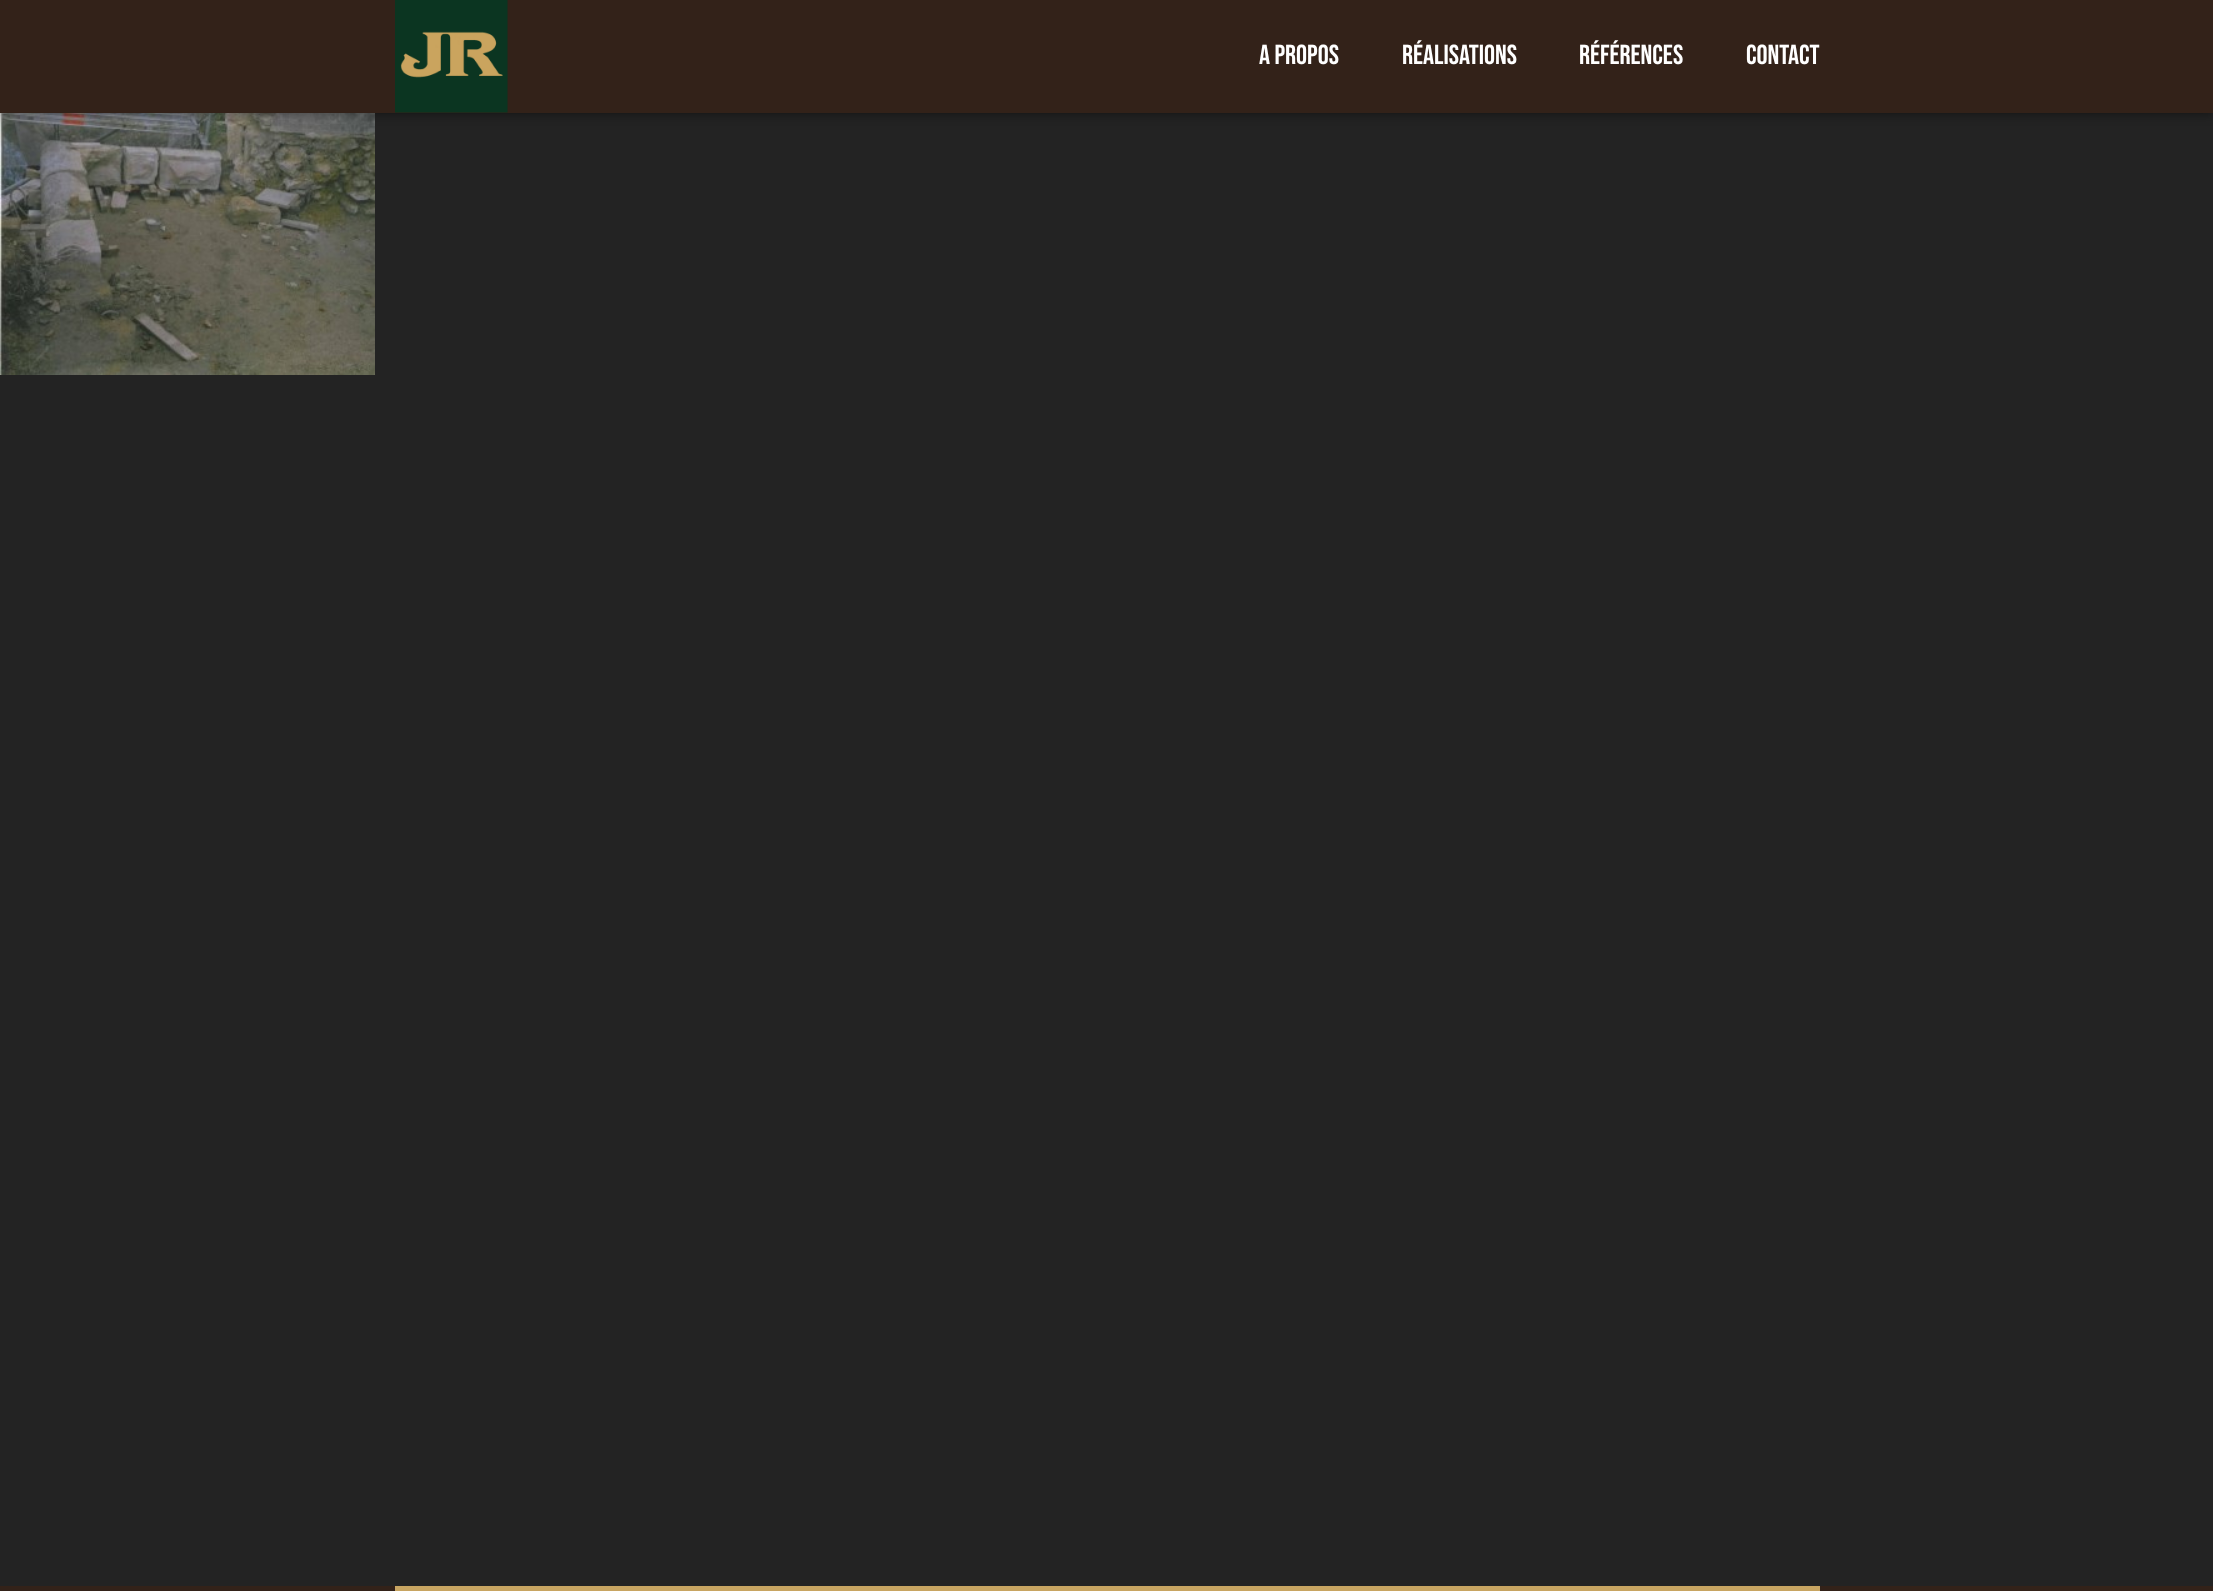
(async () => {
    const canvas = document.querySelector("canvas");
    canvas.width = 2213;
    canvas.height = 1591;
    const context = canvas.getContext("2d");
    context.miterLimit = 4;
    context.fontKerning = "normal";
    function write(s, x, y, font, color) {
        context.font = font;
        context.fillStyle = color;
        context.fillText(s, x, y);
    }
    function block(x, y, w, h, color) {
        context.fillStyle = color;
        context.fillRect(x, y, w, h);
    }
    async function photo(src, x, y, w, h) {
        const img = new Image();
        img.src = src;
        await img.decode();
        context.drawImage(img, x, y, w, h);
    }

    block(0, 0, 2213, 1591, "rgb(35, 35, 35)");
    await photo("media/2.png", 0, 113, 375, 262);
    context.fillStyle = "rgba(0, 0, 0, 0.5)";
    context.filter = "blur(6px)";
    context.beginPath();
    context.rect(0, 0, 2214, 113);
    context.fill();
    context.filter = "none";
    block(0, 0, 2213, 113, "rgb(51, 34, 25)");
    await photo("media/1.png", 395, 0, 113, 113);
    write("A propos", 1259, 64, "27.5px Bebas Neue", "rgb(255, 255, 255)");
    write("Réalisations", 1402, 64, "27.5px Bebas Neue", "rgb(255, 255, 255)");
    write("Références", 1579, 64, "27.5px Bebas Neue", "rgb(255, 255, 255)");
    write("Contact", 1746, 64, "27.5px Bebas Neue", "rgb(255, 255, 255)");
    block(0, 1586, 2213, 5, "rgb(51, 34, 25)");
    block(395, 1586, 1425, 5, "rgb(200, 165, 98)");
})();
